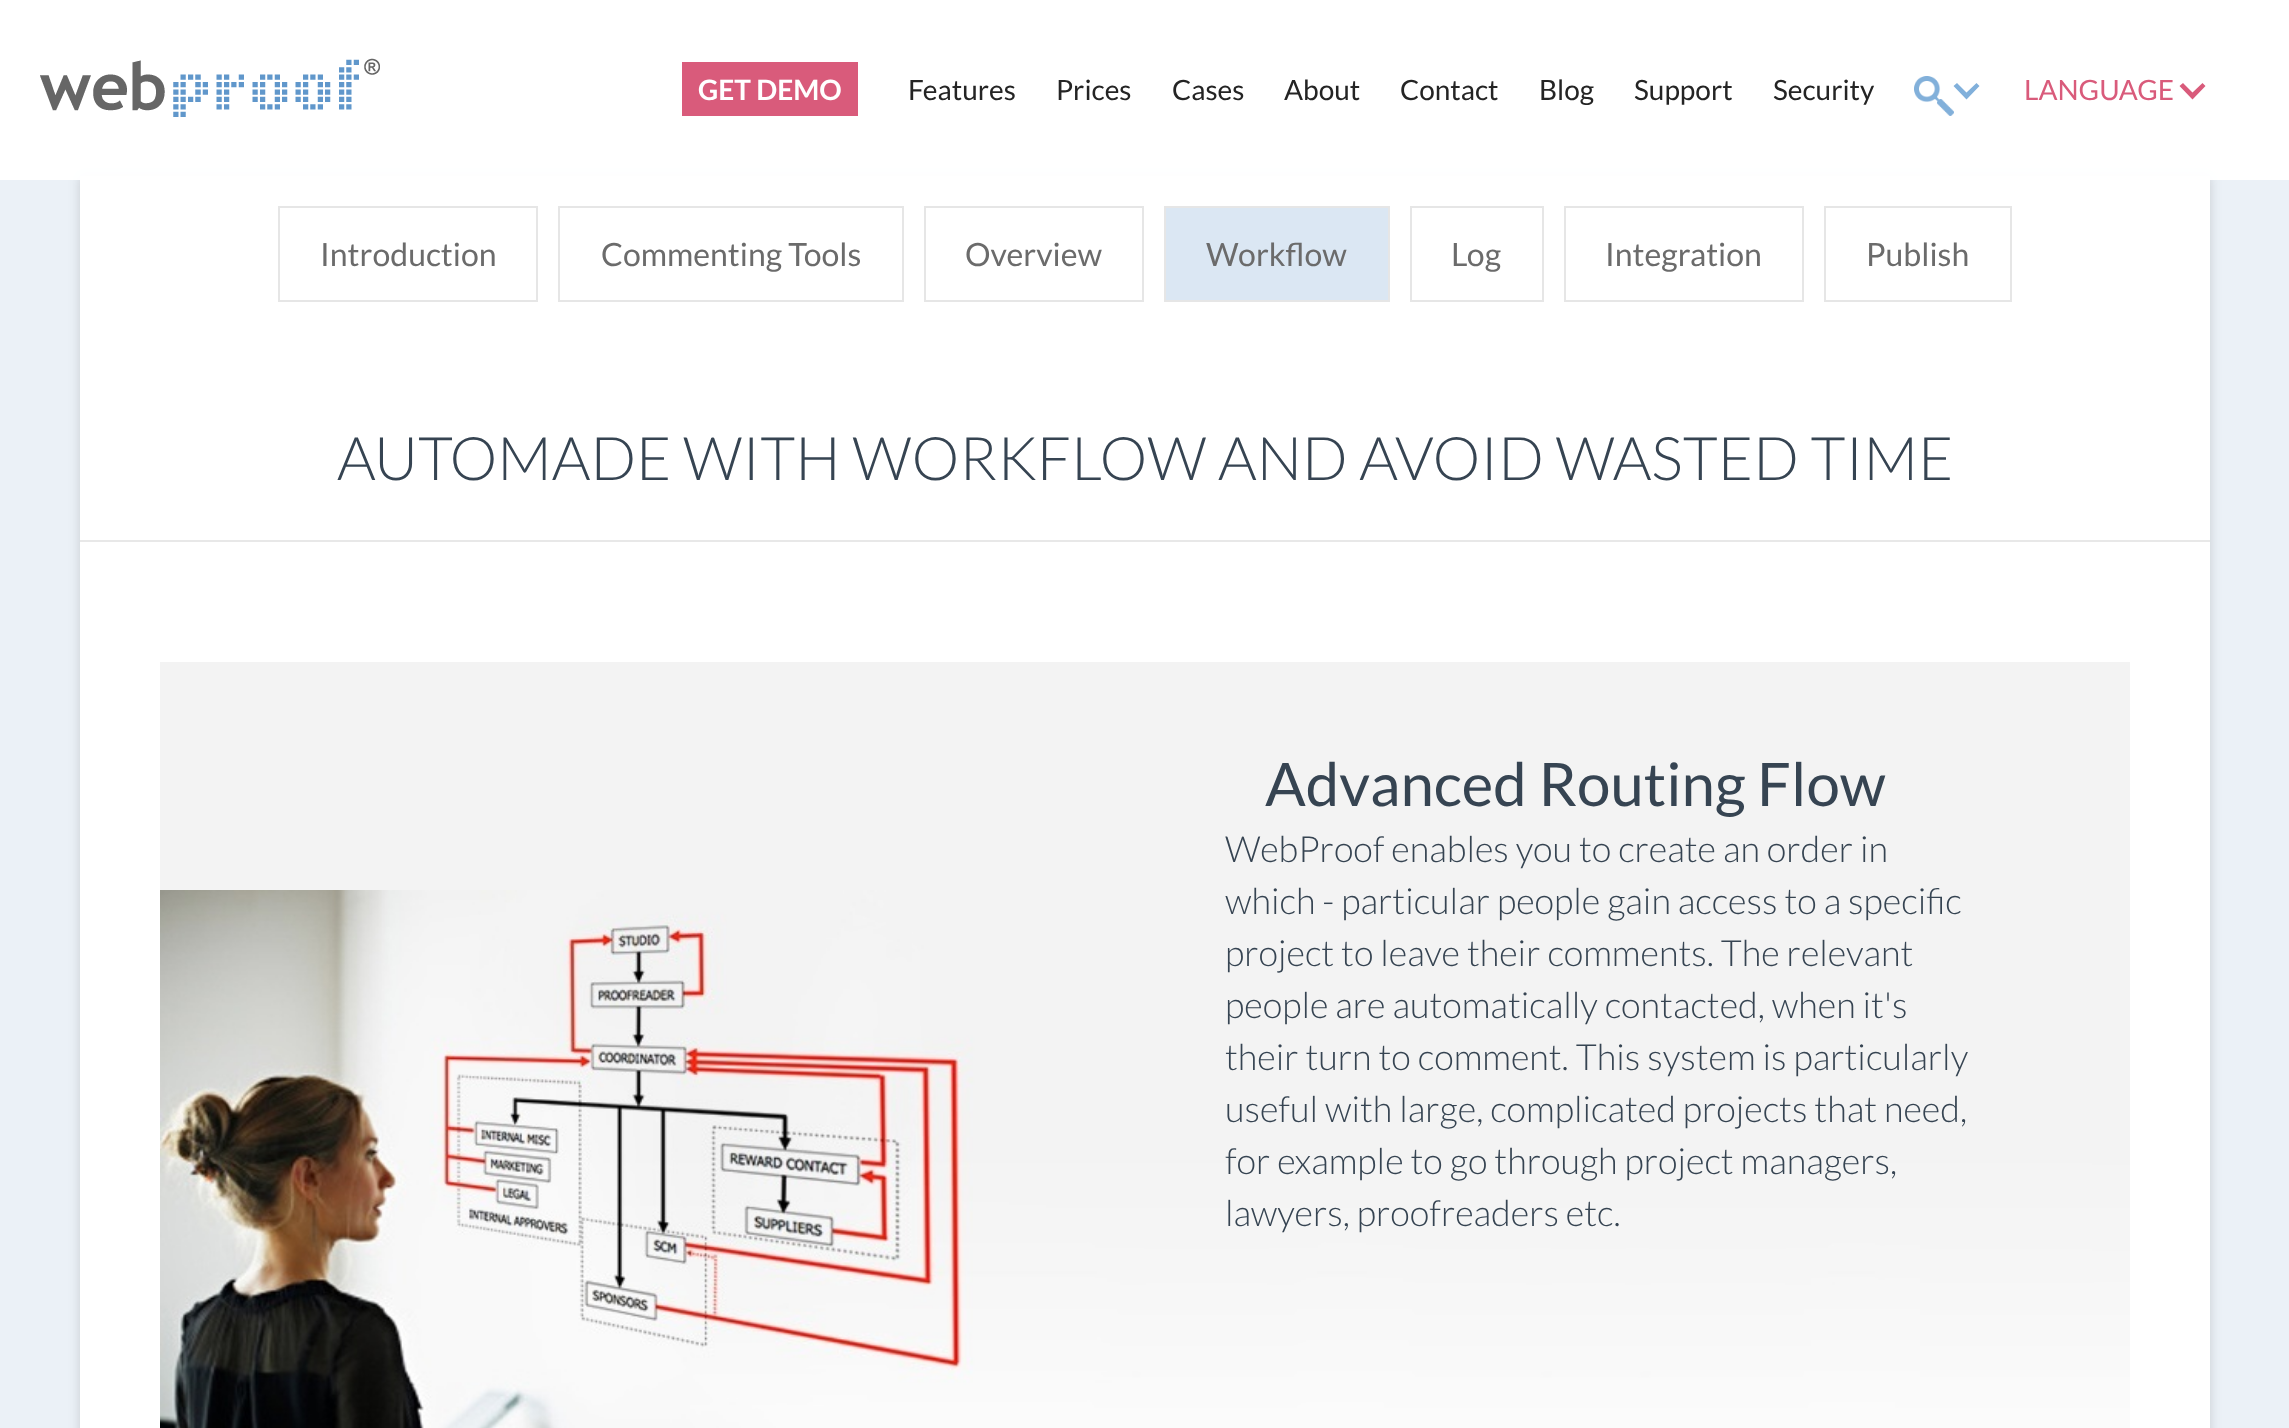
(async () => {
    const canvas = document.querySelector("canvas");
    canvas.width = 2289;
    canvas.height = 1428;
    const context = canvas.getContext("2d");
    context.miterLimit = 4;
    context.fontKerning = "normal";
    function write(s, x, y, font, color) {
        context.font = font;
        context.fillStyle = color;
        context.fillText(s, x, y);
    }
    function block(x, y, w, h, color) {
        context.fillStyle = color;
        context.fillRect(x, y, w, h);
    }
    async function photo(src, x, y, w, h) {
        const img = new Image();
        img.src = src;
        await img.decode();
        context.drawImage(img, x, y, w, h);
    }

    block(0, 0, 2289, 1428, "rgb(235, 241, 247)");
    context.fillStyle = "rgba(0, 0, 0, 0.15)";
    context.filter = "blur(6px)";
    context.beginPath();
    context.rect(80, 176, 2130, 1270);
    context.fill();
    context.filter = "none";
    block(80, 176, 2130, 1252, "rgb(255, 255, 255)");
    block(0, 0, 2289, 180, "rgba(255, 255, 255, 0.96)");
    await photo("media/1.png", 40, 58, 340, 59);
    block(682, 62, 176, 54, "rgb(217, 91, 123)");
    write("GET DEMO", 698, 100, "bold 28px Lato", "rgb(255, 255, 255)");
    write("Features", 908, 100, "28px Lato", "rgb(36, 36, 36)");
    write("Prices", 1056, 100, "28px Lato", "rgb(36, 36, 36)");
    write("Cases", 1172, 100, "28px Lato", "rgb(36, 36, 36)");
    write("About", 1284, 100, "28px Lato", "rgb(36, 36, 36)");
    write("Contact", 1400, 100, "28px Lato", "rgb(36, 36, 36)");
    write("Blog", 1539, 100, "28px Lato", "rgb(36, 36, 36)");
    write("Support", 1634, 100, "28px Lato", "rgb(36, 36, 36)");
    write("Security", 1773, 100, "28px Lato", "rgb(36, 36, 36)");
    context.fillStyle = "rgb(129, 176, 219)";
    context.beginPath();
    context.moveTo(1976.5, 83);
    context.lineTo(1966.5, 92.5);
    context.lineTo(1957, 83);
    context.lineTo(1953.5, 86);
    context.lineTo(1966.5, 99.5);
    context.lineTo(1979.5, 86);
    context.closePath();
    context.fill();
    await photo("media/2.png", 1914, 76, 40, 40);
    write("LANGUAGE", 2024, 100, "28px Lato", "rgb(217, 91, 123)");
    context.beginPath();
    context.moveTo(2202.5, 83);
    context.lineTo(2192.5, 92.5);
    context.lineTo(2183, 83);
    context.lineTo(2179.5, 86);
    context.lineTo(2192.5, 99.5);
    context.lineTo(2205.5, 86);
    context.closePath();
    context.fill();
    context.strokeStyle = "rgb(230, 230, 230)";
    context.lineWidth = 2;
    context.strokeRect(279, 207, 258, 94);
    write("Introduction", 320, 266, "32px Lato", "rgb(107, 107, 107)");
    context.strokeRect(559, 207, 344, 94);
    write("Commenting Tools", 601, 266, "32px Lato", "rgb(107, 107, 107)");
    context.strokeRect(925, 207, 218, 94);
    write("Overview", 965, 266, "32px Lato", "rgb(107, 107, 107)");
    context.fillStyle = "rgb(219, 231, 243)";
    context.beginPath();
    context.rect(1165, 207, 224, 94);
    context.fill();
    context.stroke();
    write("Workflow", 1206, 266, "32px Lato", "rgb(107, 107, 107)");
    context.strokeRect(1411, 207, 132, 94);
    write("Log", 1451, 266, "32px Lato", "rgb(107, 107, 107)");
    context.strokeRect(1565, 207, 238, 94);
    write("Integration", 1605, 266, "32px Lato", "rgb(107, 107, 107)");
    context.strokeRect(1825, 207, 186, 94);
    write("Publish", 1866, 266, "32px Lato", "rgb(107, 107, 107)");
    block(80, 540, 2130, 2, "rgb(232, 232, 232)");
    write("AUTOMADE WITH WORKFLOW AND AVOID WASTED TIME", 337, 480, "300 60px Lato", "rgb(54, 68, 82)");
    block(160, 662, 1970, 228, "rgb(243, 243, 243)");
    await photo("media/3.png", 160, 890, 1970, 538);
    write("Advanced Routing Flow", 1265, 806, "60px Lato", "rgb(54, 68, 82)");
    write("WebProof enables you to create an order in", 1225, 862, "300 36px Lato", "rgb(54, 68, 82)");
    write("which - particular people gain access to a specific", 1225, 914, "300 36px Lato", "rgb(54, 68, 82)");
    write("project to leave their comments. The relevant", 1225, 966, "300 36px Lato", "rgb(54, 68, 82)");
    write("people are automatically contacted, when it's", 1225, 1018, "300 36px Lato", "rgb(54, 68, 82)");
    write("their turn to comment. This system is particularly", 1225, 1070, "300 36px Lato", "rgb(54, 68, 82)");
    write("useful with large, complicated projects that need,", 1225, 1122, "300 36px Lato", "rgb(54, 68, 82)");
    write("for example to go through project managers,", 1225, 1174, "300 36px Lato", "rgb(54, 68, 82)");
    write("lawyers, proofreaders etc.", 1225, 1226, "300 36px Lato", "rgb(54, 68, 82)");
})();
